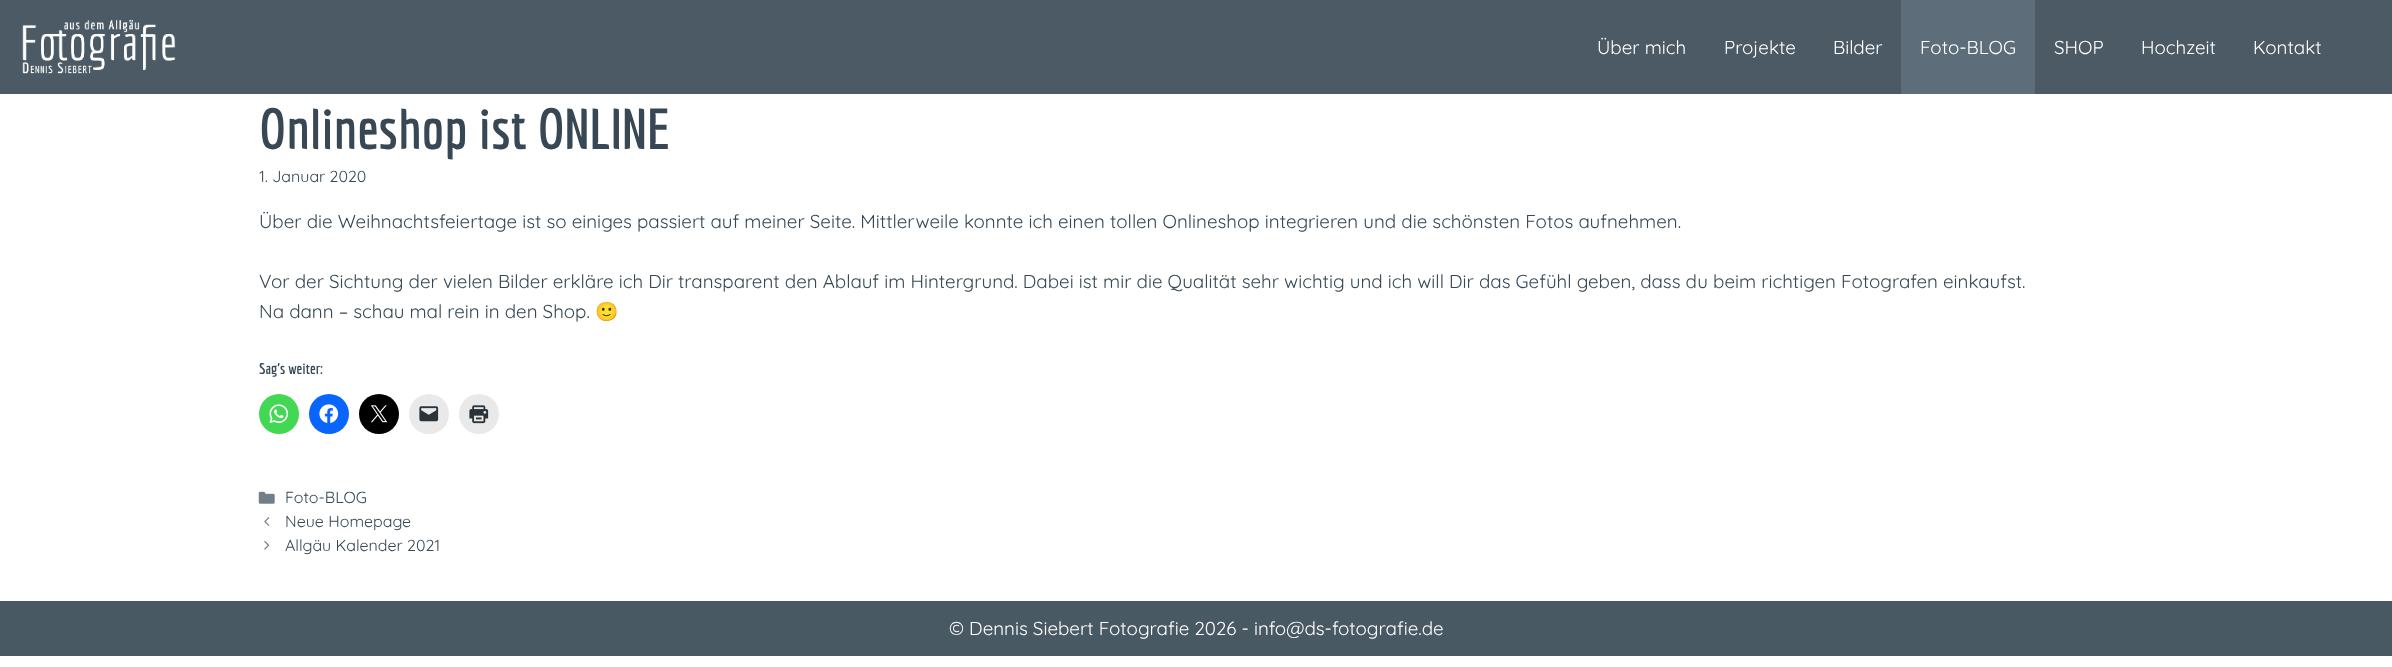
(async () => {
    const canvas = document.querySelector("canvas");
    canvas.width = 2392;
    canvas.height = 667;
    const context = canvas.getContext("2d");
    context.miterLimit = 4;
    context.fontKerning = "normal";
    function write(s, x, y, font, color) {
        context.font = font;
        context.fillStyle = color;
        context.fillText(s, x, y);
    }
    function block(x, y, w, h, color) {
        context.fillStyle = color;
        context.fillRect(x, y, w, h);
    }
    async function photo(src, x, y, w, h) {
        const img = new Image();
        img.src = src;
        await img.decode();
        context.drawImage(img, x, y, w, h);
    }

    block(0, 0, 2392, 667, "rgb(255, 255, 255)");
    block(0, 0, 2392, 94, "rgb(75, 90, 101)");
    await photo("media/1.png", 22, 19, 154, 55);
    write("Über mich", 1597, 54, "18.75px Quicksand", "rgb(255, 255, 255)");
    write("Projekte", 1724, 54, "18.75px Quicksand", "rgb(255, 255, 255)");
    write("Bilder", 1833, 54, "18.75px Quicksand", "rgb(255, 255, 255)");
    block(1901, 0, 134, 94, "rgb(93, 110, 122)");
    write("Foto-BLOG", 1920, 54, "18.75px Quicksand", "rgb(255, 255, 255)");
    write("SHOP", 2054, 54, "18.75px Quicksand", "rgb(255, 255, 255)");
    write("Hochzeit", 2141, 54, "18.75px Quicksand", "rgb(255, 255, 255)");
    write("Kontakt", 2253, 54, "18.75px Quicksand", "rgb(255, 255, 255)");
    write("Onlineshop ist ONLINE", 259, 149, "bold 56.25px Economica", "rgb(55, 72, 84)");
    write("1. Januar 2020", 259, 182, "16px Quicksand", "rgb(55, 72, 84)");
    write("Über die Weihnachtsfeiertage ist so einiges passiert auf meiner Seite. Mittlerweile konnte ich einen tollen Onlineshop integrieren und die schönsten Fotos aufnehmen.", 259, 228, "18.75px Quicksand", "rgb(55, 72, 84)");
    write("Vor der Sichtung der vielen Bilder erkläre ich Dir transparent den Ablauf im Hintergrund. Dabei ist mir die Qualität sehr wichtig und ich will Dir das Gefühl geben, dass du beim richtigen Fotografen einkaufst.", 259, 288, "18.75px Quicksand", "rgb(55, 72, 84)");
    write("Na dann – schau mal rein in den Shop.", 259, 318, "18.75px Quicksand", "rgb(55, 72, 84)");
    write("🙂", 595, 318, "18.75px Noto Color Emoji", "rgb(55, 72, 84)");
    write("Sag's weiter:", 259, 374, "bold 15px Economica", "rgb(55, 72, 84)");
    context.fillStyle = "rgb(67, 216, 84)";
    context.beginPath();
    context.arc(279, 414, 20, 0, Math.PI * 2);
    context.fill();
    await photo("media/2.png", 269, 404, 20, 19);
    context.fillStyle = "rgb(8, 102, 255)";
    context.beginPath();
    context.arc(329, 414, 20, 0, Math.PI * 2);
    context.fill();
    await photo("media/3.png", 319, 404, 20, 19);
    context.fillStyle = "rgb(0, 0, 0)";
    context.beginPath();
    context.arc(379, 414, 20, 0, Math.PI * 2);
    context.fill();
    await photo("media/4.png", 370, 405, 18, 18);
    context.fillStyle = "rgb(233, 233, 233)";
    context.beginPath();
    context.arc(429, 414, 20, 0, Math.PI * 2);
    context.fill();
    await photo("media/5.png", 419, 406, 20, 16);
    context.beginPath();
    context.arc(479, 414, 20, 0, Math.PI * 2);
    context.fill();
    await photo("media/6.png", 469, 405, 20, 19);
    await photo("media/7.png", 258, 491, 17, 13);
    write("Foto-BLOG", 285, 503, "16px Quicksand", "rgb(55, 72, 84)");
    await photo("media/8.png", 264, 517, 6, 9);
    write("Neue Homepage", 285, 527, "16px Quicksand", "rgb(55, 72, 84)");
    await photo("media/9.png", 264, 540, 6, 10);
    write("Allgäu Kalender 2021", 285, 551, "16px Quicksand", "rgb(55, 72, 84)");
    block(0, 601, 2392, 55, "rgb(73, 89, 99)");
    write("© Dennis Siebert Fotografie 2026 - info@ds-fotografie.de", 949, 635, "18.75px Quicksand", "rgb(255, 255, 255)");
})();
